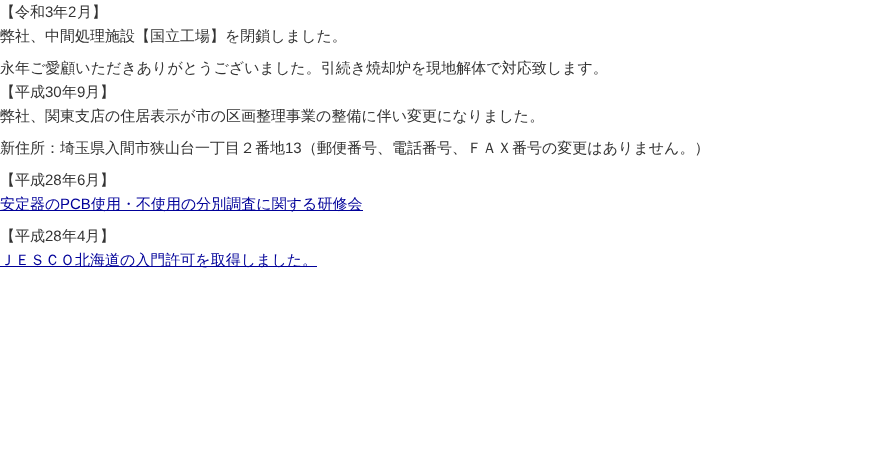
(async () => {
    const canvas = document.querySelector("canvas");
    canvas.width = 890;
    canvas.height = 460;
    const context = canvas.getContext("2d");
    context.miterLimit = 4;
    context.fontKerning = "normal";
    function write(s, x, y, font, color) {
        context.font = font;
        context.fillStyle = color;
        context.fillText(s, x, y);
    }
    function block(x, y, w, h, color) {
        context.fillStyle = color;
        context.fillRect(x, y, w, h);
    }

    block(0, 0, 890, 460, "rgb(255, 255, 255)");
    write("【令和", 0, 17, "500 15px WenQuanYi Zen Hei", "rgb(51, 51, 51)");
    write("3", 45, 17, "15px Liberation Sans", "rgb(51, 51, 51)");
    write("年", 53, 17, "500 15px WenQuanYi Zen Hei", "rgb(51, 51, 51)");
    write("2", 68, 17, "15px Liberation Sans", "rgb(51, 51, 51)");
    write("月】", 77, 17, "500 15px WenQuanYi Zen Hei", "rgb(51, 51, 51)");
    write("弊社、中間処理施設【国立工場】を閉鎖しました。", 0, 41, "500 15px WenQuanYi Zen Hei", "rgb(51, 51, 51)");
    write("永年ご愛顧いただきありがとうございました。引続き焼却炉を現地解体で対応致します。", 0, 73, "500 15px WenQuanYi Zen Hei", "rgb(51, 51, 51)");
    write("【平成", 0, 97, "500 15px WenQuanYi Zen Hei", "rgb(51, 51, 51)");
    write("30", 45, 97, "15px Liberation Sans", "rgb(51, 51, 51)");
    write("年", 62, 97, "500 15px WenQuanYi Zen Hei", "rgb(51, 51, 51)");
    write("9", 77, 97, "15px Liberation Sans", "rgb(51, 51, 51)");
    write("月】", 85, 97, "500 15px WenQuanYi Zen Hei", "rgb(51, 51, 51)");
    write("弊社、関東支店の住居表示が市の区画整理事業の整備に伴い変更になりました。", 0, 121, "500 15px WenQuanYi Zen Hei", "rgb(51, 51, 51)");
    write("新住所：埼玉県入間市狭山台一丁目２番地", 0, 153, "500 15px WenQuanYi Zen Hei", "rgb(51, 51, 51)");
    write("13", 285, 153, "15px Liberation Sans", "rgb(51, 51, 51)");
    write("（郵便番号、電話番号、ＦＡＸ番号の変更はありません。）", 302, 153, "500 15px WenQuanYi Zen Hei", "rgb(51, 51, 51)");
    write("【平成", 0, 185, "500 15px WenQuanYi Zen Hei", "rgb(51, 51, 51)");
    write("28", 45, 185, "15px Liberation Sans", "rgb(51, 51, 51)");
    write("年", 62, 185, "500 15px WenQuanYi Zen Hei", "rgb(51, 51, 51)");
    write("6", 77, 185, "15px Liberation Sans", "rgb(51, 51, 51)");
    write("月】", 85, 185, "500 15px WenQuanYi Zen Hei", "rgb(51, 51, 51)");
    block(0, 210, 363, 1, "rgb(0, 0, 153)");
    write("安定器の", 0, 209, "500 15px WenQuanYi Zen Hei", "rgb(0, 0, 153)");
    write("PCB", 60, 209, "15px Liberation Sans", "rgb(0, 0, 153)");
    write("使用・不使用の分別調査に関する研修会", 91, 209, "500 15px WenQuanYi Zen Hei", "rgb(0, 0, 153)");
    write("【平成", 0, 241, "500 15px WenQuanYi Zen Hei", "rgb(51, 51, 51)");
    write("28", 45, 241, "15px Liberation Sans", "rgb(51, 51, 51)");
    write("年", 62, 241, "500 15px WenQuanYi Zen Hei", "rgb(51, 51, 51)");
    write("4", 77, 241, "15px Liberation Sans", "rgb(51, 51, 51)");
    write("月】", 85, 241, "500 15px WenQuanYi Zen Hei", "rgb(51, 51, 51)");
    block(0, 266, 317, 1, "rgb(0, 0, 153)");
    write("ＪＥＳＣＯ北海道の入門許可を取得しました。", 0, 265, "500 15px WenQuanYi Zen Hei", "rgb(0, 0, 153)");
})();
